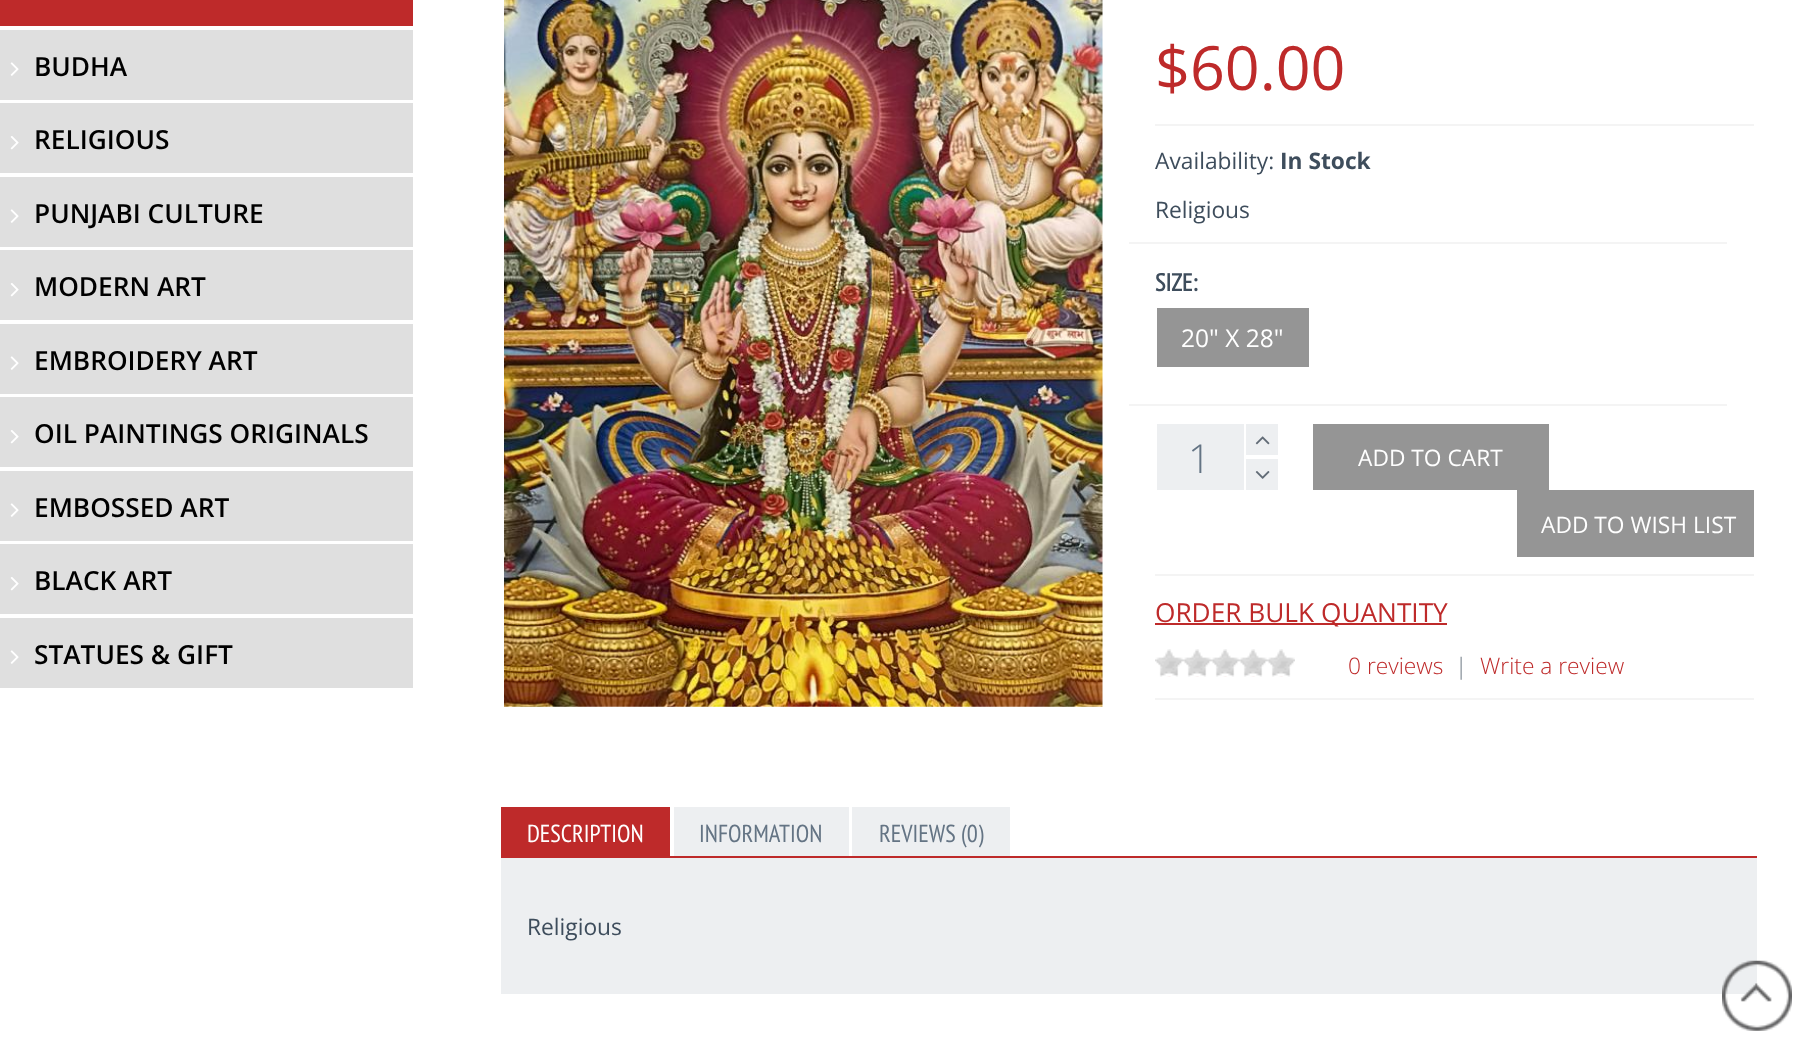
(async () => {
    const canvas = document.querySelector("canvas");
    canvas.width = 1809;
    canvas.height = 1047;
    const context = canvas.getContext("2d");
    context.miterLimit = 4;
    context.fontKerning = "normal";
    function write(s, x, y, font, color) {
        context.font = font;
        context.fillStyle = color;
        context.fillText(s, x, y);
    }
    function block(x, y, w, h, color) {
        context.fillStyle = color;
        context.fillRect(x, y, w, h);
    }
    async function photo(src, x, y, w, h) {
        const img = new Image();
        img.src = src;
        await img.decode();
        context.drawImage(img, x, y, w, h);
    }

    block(0, 0, 1809, 1047, "rgb(255, 255, 255)");
    block(0, 0, 413, 26, "rgb(190, 42, 42)");
    block(0, 30, 413, 70, "rgb(223, 223, 223)");
    await photo("media/1.png", 10, 62, 9, 14);
    write("BUDHA", 34, 76, "600 26.25px Open Sans", "rgb(0, 0, 0)");
    block(0, 103, 413, 70, "rgb(223, 223, 223)");
    await photo("media/2.png", 10, 136, 9, 14);
    write("RELIGIOUS", 34, 149, "600 26.25px Open Sans", "rgb(0, 0, 0)");
    block(0, 177, 413, 70, "rgb(223, 223, 223)");
    await photo("media/1.png", 10, 209, 9, 14);
    write("PUNJABI CULTURE", 34, 223, "600 26.25px Open Sans", "rgb(0, 0, 0)");
    block(0, 250, 413, 70, "rgb(223, 223, 223)");
    await photo("media/2.png", 10, 283, 9, 14);
    write("MODERN ART", 34, 296, "600 26.25px Open Sans", "rgb(0, 0, 0)");
    block(0, 324, 413, 70, "rgb(223, 223, 223)");
    await photo("media/1.png", 10, 356, 9, 14);
    write("EMBROIDERY ART", 34, 370, "600 26.25px Open Sans", "rgb(0, 0, 0)");
    block(0, 397, 413, 70, "rgb(223, 223, 223)");
    await photo("media/2.png", 10, 430, 9, 14);
    write("OIL PAINTINGS ORIGINALS", 34, 443, "600 26.25px Open Sans", "rgb(0, 0, 0)");
    block(0, 471, 413, 70, "rgb(223, 223, 223)");
    await photo("media/1.png", 10, 503, 9, 14);
    write("EMBOSSED ART", 34, 517, "600 26.25px Open Sans", "rgb(0, 0, 0)");
    block(0, 544, 413, 70, "rgb(223, 223, 223)");
    await photo("media/2.png", 10, 577, 9, 14);
    write("BLACK ART", 34, 590, "600 26.25px Open Sans", "rgb(0, 0, 0)");
    block(0, 618, 413, 70, "rgb(223, 223, 223)");
    await photo("media/1.png", 10, 650, 9, 14);
    write("STATUES & GIFT", 34, 664, "600 26.25px Open Sans", "rgb(0, 0, 0)");
    await photo("media/3.png", 504, 0, 599, 707);
    block(1155, 124, 599, 2, "rgb(244, 244, 244)");
    write("$60.00", 1155, 90, "61px Open Sans", "rgb(190, 42, 42)");
    write("Availability:", 1155, 169, "22.75px Open Sans", "rgb(62, 77, 92)");
    write("In Stock", 1280, 169, "bold 22.75px Open Sans", "rgb(62, 77, 92)");
    write("Religious", 1155, 218, "22.75px Open Sans", "rgb(62, 77, 92)");
    block(1129, 242, 598, 2, "rgb(244, 244, 244)");
    block(1129, 404, 598, 2, "rgb(244, 244, 244)");
    write("SIZE:", 1155, 291, "bold 24.5px PT Sans Narrow", "rgb(62, 77, 92)");
    block(1157, 308, 152, 59, "rgb(149, 149, 149)");
    write("20\" X 28\"", 1181, 347, "24.5px Open Sans", "rgb(255, 255, 255)");
    block(1155, 574, 599, 2, "rgb(244, 244, 244)");
    block(1246, 424, 32, 31, "rgb(237, 239, 241)");
    await photo("media/4.png", 1255, 436, 15, 9);
    block(1157, 424, 87, 66, "rgb(237, 239, 241)");
    write("1", 1188, 473, "300 40px Open Sans", "rgb(100, 116, 132)");
    block(1246, 459, 32, 31, "rgb(237, 239, 241)");
    await photo("media/5.png", 1255, 471, 15, 8);
    block(1313, 424, 236, 66, "rgb(149, 149, 149)");
    write("ADD TO CART", 1358, 466, "22.75px Open Sans", "rgb(255, 255, 255)");
    block(1517, 490, 237, 67, "rgb(149, 149, 149)");
    write("ADD TO WISH LIST", 1541, 533, "22.75px Open Sans", "rgb(255, 255, 255)");
    block(1155, 623, 292, 2, "rgb(190, 42, 42)");
    write("ORDER BULK QUANTITY", 1155, 622, "26.25px Open Sans", "rgb(190, 42, 42)");
    block(1155, 698, 599, 2, "rgb(244, 244, 244)");
    await photo("media/6.png", 1155, 649, 140, 28);
    write("0 reviews", 1348, 674, "300 22.75px Open Sans", "rgb(190, 42, 42)");
    write("|", 1455, 674, "300 22.75px Open Sans", "rgb(110, 122, 133)");
    write("Write a review", 1480, 674, "300 22.75px Open Sans", "rgb(190, 42, 42)");
    block(501, 856, 1256, 2, "rgb(190, 42, 42)");
    block(501, 807, 169, 49, "rgb(190, 42, 42)");
    write("DESCRIPTION", 527, 842, "24.5px PT Sans Narrow", "rgb(255, 255, 255)");
    block(674, 807, 175, 49, "rgb(237, 239, 241)");
    write("INFORMATION", 699, 842, "24.5px PT Sans Narrow", "rgb(100, 116, 132)");
    block(852, 807, 158, 49, "rgb(237, 239, 241)");
    write("REVIEWS (0)", 879, 842, "24.5px PT Sans Narrow", "rgb(100, 116, 132)");
    block(501, 858, 1256, 136, "rgb(237, 239, 241)");
    write("Religious", 527, 935, "22.75px Open Sans", "rgb(62, 77, 92)");
    await photo("media/7.png", 1722, 960, 70, 71);
})();
